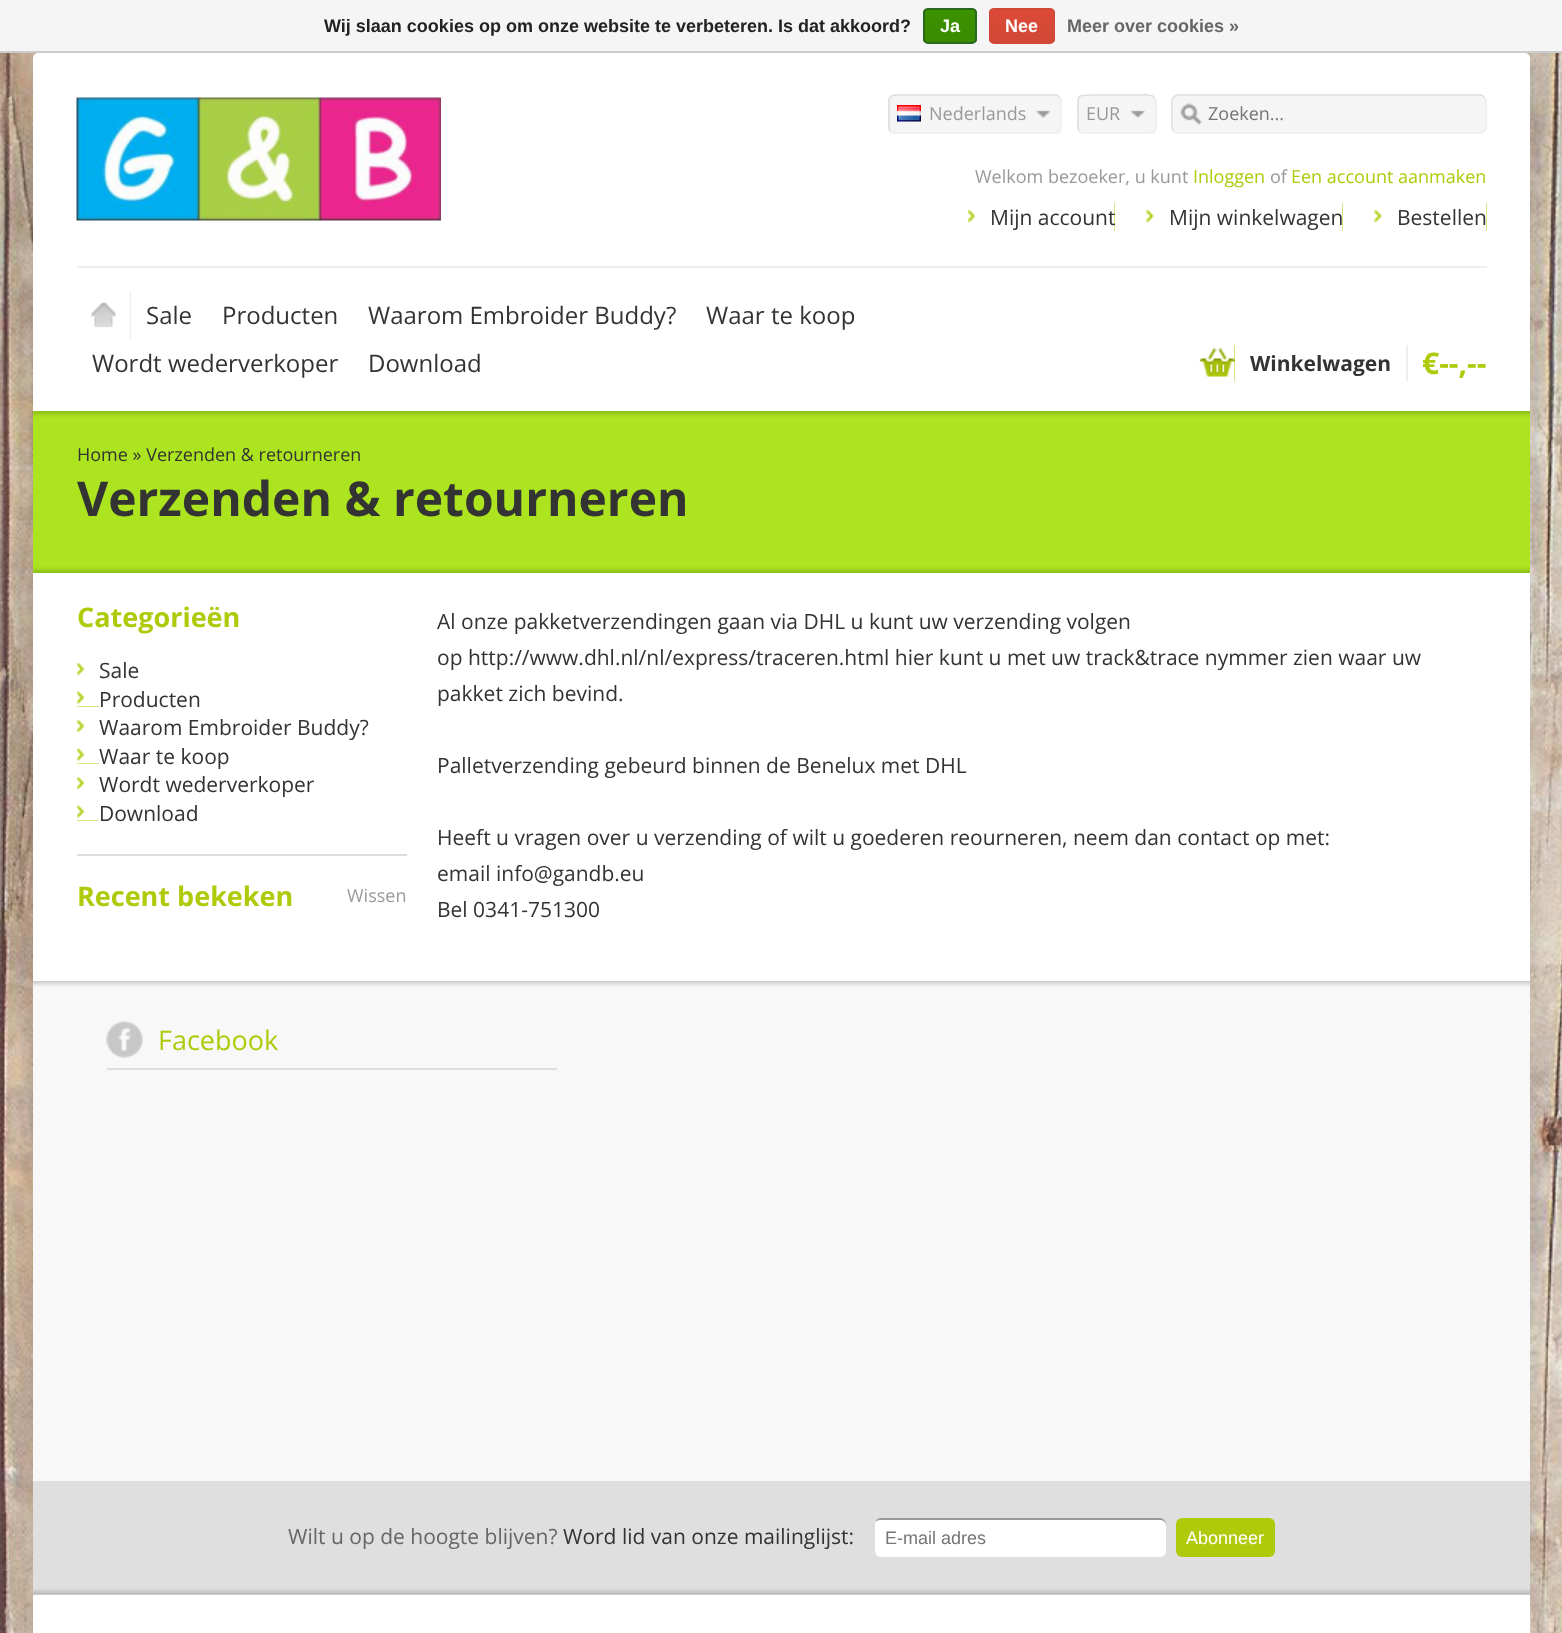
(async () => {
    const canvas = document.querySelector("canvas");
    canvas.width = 1562;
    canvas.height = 1633;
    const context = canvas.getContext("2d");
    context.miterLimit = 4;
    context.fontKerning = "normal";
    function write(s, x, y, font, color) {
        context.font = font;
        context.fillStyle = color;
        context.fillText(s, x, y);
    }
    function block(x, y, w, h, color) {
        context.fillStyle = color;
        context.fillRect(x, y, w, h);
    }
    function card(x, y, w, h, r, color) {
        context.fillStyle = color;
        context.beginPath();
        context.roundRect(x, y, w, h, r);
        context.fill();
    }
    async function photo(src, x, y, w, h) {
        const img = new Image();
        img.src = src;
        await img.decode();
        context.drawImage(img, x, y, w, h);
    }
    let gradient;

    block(0, 0, 1562, 1633, "rgb(255, 255, 255)");
    await photo("media/1.png", 0, 53, 1562, 1580);
    context.fillStyle = "rgba(0, 0, 0, 0.15)";
    context.filter = "blur(15px)";
    context.beginPath();
    context.roundRect(33, 53, 1497, 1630, 5);
    context.fill();
    context.filter = "none";
    block(0, 0, 1562, 51, "rgb(245, 245, 245)");
    block(0, 51, 1562, 2, "rgb(204, 204, 204)");
    write("Wij slaan cookies op om onze website te verbeteren. Is dat akkoord?", 324, 32, "bold 18px Liberation Sans", "rgb(34, 34, 34)");
    context.save();
    context.beginPath();
    context.roundRect(923, 8, 54, 36, 5);
    context.clip();
    gradient = context.createLinearGradient(950, 9, 950, 42);
    gradient.addColorStop(0, "rgb(60, 147, 0)");
    gradient.addColorStop(1, "rgb(57, 138, 0)");
    context.fillStyle = gradient;
    context.fillRect(923, 9, 54, 33);
    context.restore();
    context.beginPath();
    context.roundRect(924, 9, 52, 34, 4);
    context.strokeStyle = "rgb(41, 105, 29)";
    context.lineWidth = 2;
    context.stroke();
    write("Ja", 940, 32, "bold 18px Liberation Sans", "rgb(255, 255, 255)");
    context.save();
    context.beginPath();
    context.roundRect(989, 8, 66, 36, 5);
    context.clip();
    gradient = context.createLinearGradient(1022, 9, 1022, 42);
    gradient.addColorStop(0, "rgb(220, 74, 56)");
    gradient.addColorStop(1, "rgb(209, 72, 54)");
    context.fillStyle = gradient;
    context.fillRect(989, 9, 66, 33);
    context.restore();
    context.beginPath();
    context.roundRect(990, 9, 64, 34, 4);
    context.strokeStyle = "rgb(209, 72, 54)";
    context.stroke();
    write("Nee", 1005, 32, "bold 18px Liberation Sans", "rgb(255, 255, 255)");
    write("Meer over cookies »", 1067, 32, "bold 18px Liberation Sans", "rgb(102, 102, 102)");
    card(33, 53, 1497, 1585, 5, "rgb(255, 255, 255)");
    await photo("media/2.png", 76, 97, 365, 124);
    card(888, 95, 174, 39, 6, "rgb(245, 245, 245)");
    await photo("media/3.png", 1036, 110, 15, 8);
    context.beginPath();
    context.moveTo(1059.5, 97);
    context.bezierCurveTo(1060.5, 98, 1061, 99, 1061, 100.5);
    context.lineTo(1061, 127.5);
    context.bezierCurveTo(1061, 129, 1060.5, 130, 1059.5, 131);
    context.bezierCurveTo(1058.5, 132, 1057.5, 133, 1056, 133);
    context.lineTo(894, 133);
    context.bezierCurveTo(892.5, 133, 891.5, 132, 890.5, 131);
    context.strokeStyle = "rgb(238, 238, 238)";
    context.lineWidth = 1.5;
    context.stroke();
    context.beginPath();
    context.moveTo(890.5, 131);
    context.bezierCurveTo(889.5, 130, 889, 129, 889, 127.5);
    context.lineTo(889, 100.5);
    context.bezierCurveTo(889, 99, 889.5, 98, 890.5, 97);
    context.bezierCurveTo(891.5, 96, 892.5, 95, 894, 95);
    context.lineTo(1056, 95);
    context.bezierCurveTo(1057.5, 95, 1058.5, 96, 1059.5, 97);
    context.strokeStyle = "rgb(221, 221, 221)";
    context.stroke();
    await photo("media/4.png", 897, 105, 24, 17);
    write("Nederlands", 929, 120, "18px Open Sans", "rgb(153, 153, 153)");
    card(1077, 95, 80, 39, 6, "rgb(245, 245, 245)");
    await photo("media/5.png", 1131, 110, 14, 8);
    context.beginPath();
    context.moveTo(1154, 97);
    context.bezierCurveTo(1156.5, 99, 1156, 102.5, 1156, 105);
    context.lineTo(1156, 114);
    context.bezierCurveTo(1156, 133.5, 1158.5, 133, 1139, 133);
    context.lineTo(1094, 133);
    context.bezierCurveTo(1092.5, 133, 1082.5, 134.5, 1079.5, 131);
    context.strokeStyle = "rgb(238, 238, 238)";
    context.stroke();
    context.beginPath();
    context.moveTo(1079.5, 131);
    context.bezierCurveTo(1077, 129, 1078, 125.5, 1078, 123);
    context.lineTo(1078, 114);
    context.bezierCurveTo(1078, 94.5, 1075, 95, 1094, 95);
    context.lineTo(1139, 95);
    context.bezierCurveTo(1141, 95, 1151, 93.5, 1154, 97);
    context.strokeStyle = "rgb(221, 221, 221)";
    context.stroke();
    write("EUR", 1086, 120, "18px Open Sans", "rgb(153, 153, 153)");
    card(1172, 95, 315, 39, 6, "rgb(245, 245, 245)");
    await photo("media/6.png", 1180, 103, 22, 22);
    context.beginPath();
    context.moveTo(1484, 97);
    context.bezierCurveTo(1485, 98, 1486, 99, 1486, 100.5);
    context.lineTo(1486, 127.5);
    context.bezierCurveTo(1486, 129, 1485, 130, 1484, 131);
    context.bezierCurveTo(1483, 132, 1482, 133, 1480.5, 133);
    context.lineTo(1177.5, 133);
    context.bezierCurveTo(1176, 133, 1175, 132, 1174, 131);
    context.strokeStyle = "rgb(238, 238, 238)";
    context.stroke();
    context.beginPath();
    context.moveTo(1174, 131);
    context.bezierCurveTo(1173, 130, 1172, 129, 1172, 127.5);
    context.lineTo(1172, 100.5);
    context.bezierCurveTo(1172, 99, 1173, 98, 1174, 97);
    context.bezierCurveTo(1175, 96, 1176, 95, 1177.5, 95);
    context.lineTo(1480.5, 95);
    context.bezierCurveTo(1482, 95, 1483, 96, 1484, 97);
    context.strokeStyle = "rgb(221, 221, 221)";
    context.stroke();
    write("Zoeken...", 1208, 120, "18px Open Sans", "rgb(117, 117, 117)");
    write("Welkom bezoeker, u kunt", 975, 183, "18px Open Sans", "rgb(153, 153, 153)");
    write("Inloggen", 1193, 183, "18px Open Sans", "rgb(175, 202, 11)");
    write("of", 1270, 183, "18px Open Sans", "rgb(153, 153, 153)");
    write("Een account aanmaken", 1291, 183, "18px Open Sans", "rgb(175, 202, 11)");
    block(968, 203, 147, 28, "rgb(175, 202, 11)");
    await photo("media/7.png", 968, 203, 147, 28);
    block(1146, 203, 197, 28, "rgb(175, 202, 11)");
    await photo("media/8.png", 1146, 203, 197, 28);
    block(1374, 203, 113, 28, "rgb(175, 202, 11)");
    await photo("media/9.png", 1374, 203, 113, 28);
    write("Mijn account", 990, 225, "21px Open Sans", "rgb(51, 51, 51)");
    write("Mijn winkelwagen", 1169, 225, "21px Open Sans", "rgb(51, 51, 51)");
    write("Bestellen", 1397, 225, "21px Open Sans", "rgb(51, 51, 51)");
    block(77, 266, 1410, 2, "rgb(238, 238, 238)");
    block(91, 291, 40, 48, "rgb(221, 221, 221)");
    await photo("media/10.png", 77, 291, 54, 48);
    write("Sale", 146, 324, "24px Open Sans", "rgb(51, 51, 51)");
    write("Producten", 222, 324, "24px Open Sans", "rgb(51, 51, 51)");
    write("Waarom Embroider Buddy?", 368, 324, "24px Open Sans", "rgb(51, 51, 51)");
    write("Waar te koop", 706, 324, "24px Open Sans", "rgb(51, 51, 51)");
    write("Wordt wederverkoper", 92, 372, "24px Open Sans", "rgb(51, 51, 51)");
    write("Download", 368, 372, "24px Open Sans", "rgb(51, 51, 51)");
    block(1199, 345, 36, 36, "rgb(175, 202, 11)");
    await photo("media/11.png", 1199, 345, 36, 36);
    block(1406, 345, 2, 36, "rgb(238, 238, 238)");
    write("Winkelwagen", 1250, 371, "bold 21px Open Sans", "rgb(51, 51, 51)");
    write("€--,--", 1422, 374, "bold 30px Open Sans", "rgb(175, 202, 11)");
    block(33, 411, 1497, 162, "rgb(172, 229, 31)");
    await photo("media/12.png", 33, 411, 1497, 6);
    write("Home » Verzenden & retourneren", 77, 461, "18px Open Sans", "rgb(51, 51, 51)");
    write("Verzenden & retourneren", 77, 516, "bold 48px Open Sans", "rgb(51, 51, 51)");
    await photo("media/13.png", 33, 567, 1497, 6);
    block(77, 854, 330, 2, "rgb(221, 221, 221)");
    write("Categorieën", 77, 627, "bold 27px Open Sans", "rgb(175, 202, 11)");
    block(77, 662, 8, 14, "rgb(175, 202, 11)");
    await photo("media/14.png", 77, 656, 22, 22);
    write("Sale", 99, 678, "21px Open Sans", "rgb(51, 51, 51)");
    block(77, 691, 22, 16, "rgb(175, 202, 11)");
    await photo("media/15.png", 77, 684, 22, 23);
    write("Producten", 99, 707, "21px Open Sans", "rgb(51, 51, 51)");
    block(77, 719, 8, 14, "rgb(175, 202, 11)");
    await photo("media/14.png", 77, 713, 22, 22);
    write("Waarom Embroider Buddy?", 99, 735, "21px Open Sans", "rgb(51, 51, 51)");
    block(77, 748, 22, 16, "rgb(175, 202, 11)");
    await photo("media/15.png", 77, 741, 22, 23);
    write("Waar te koop", 99, 764, "21px Open Sans", "rgb(51, 51, 51)");
    block(77, 776, 8, 14, "rgb(175, 202, 11)");
    await photo("media/14.png", 77, 770, 22, 22);
    write("Wordt wederverkoper", 99, 792, "21px Open Sans", "rgb(51, 51, 51)");
    block(77, 805, 22, 16, "rgb(175, 202, 11)");
    await photo("media/15.png", 77, 798, 22, 23);
    write("Download", 99, 821, "21px Open Sans", "rgb(51, 51, 51)");
    write("Recent bekeken", 77, 906, "bold 27px Open Sans", "rgb(175, 202, 11)");
    write("Wissen", 347, 902, "18px Open Sans", "rgb(153, 153, 153)");
    write("Al onze pakketverzendingen gaan via DHL u kunt uw verzending volgen", 437, 629, "21px Open Sans", "rgb(51, 51, 51)");
    write("op http://www.dhl.nl/nl/express/traceren.html hier kunt u met uw track&trace nymmer zien waar uw", 437, 665, "21px Open Sans", "rgb(51, 51, 51)");
    write("pakket zich bevind.", 437, 701, "21px Open Sans", "rgb(51, 51, 51)");
    write("Palletverzending gebeurd binnen de Benelux met DHL", 437, 773, "21px Open Sans", "rgb(51, 51, 51)");
    write("Heeft u vragen over u verzending of wilt u goederen reourneren, neem dan contact op met:", 437, 845, "21px Open Sans", "rgb(51, 51, 51)");
    write("email info@gandb.eu", 437, 881, "21px Open Sans", "rgb(51, 51, 51)");
    write("Bel 0341-751300", 437, 917, "21px Open Sans", "rgb(51, 51, 51)");
    block(33, 981, 1497, 500, "rgb(248, 248, 248)");
    await photo("media/16.png", 33, 981, 1497, 6);
    await photo("media/17.png", 106, 1021, 37, 37);
    block(107, 1068, 450, 2, "rgb(223, 223, 223)");
    write("Facebook", 158, 1050, "27px Open Sans", "rgb(175, 202, 11)");
    block(33, 1481, 1497, 114, "rgb(223, 223, 223)");
    write("Wilt u op de hoogte blijven?", 288, 1544, "21px Open Sans", "rgb(102, 102, 102)");
    write("Word lid van onze mailinglijst:", 563, 1544, "21px Open Sans", "rgb(51, 51, 51)");
    card(875, 1518, 291, 39, 6, "rgb(255, 255, 255)");
    context.fillStyle = "rgba(0, 0, 0, 0.4)";
    context.beginPath();
    context.moveTo(880, 1520);
    context.lineTo(1160, 1520);
    context.bezierCurveTo(1163, 1520, 1166, 1522, 1166, 1526);
    context.lineTo(1166, 1524);
    context.bezierCurveTo(1166, 1521, 1163, 1518, 1160, 1518);
    context.lineTo(881, 1518);
    context.bezierCurveTo(878, 1518, 876, 1520, 875, 1522);
    context.bezierCurveTo(876, 1521, 878, 1520, 880, 1520);
    context.closePath();
    context.fill();
    write("E-mail adres", 885, 1544, "18px Liberation Sans", "rgb(117, 117, 117)");
    card(1176, 1518, 99, 39, 6, "rgb(175, 202, 11)");
    write("Abonneer", 1186, 1544, "18px Liberation Sans", "rgb(255, 255, 255)");
    await photo("media/18.png", 33, 1589, 1497, 6);
})();
